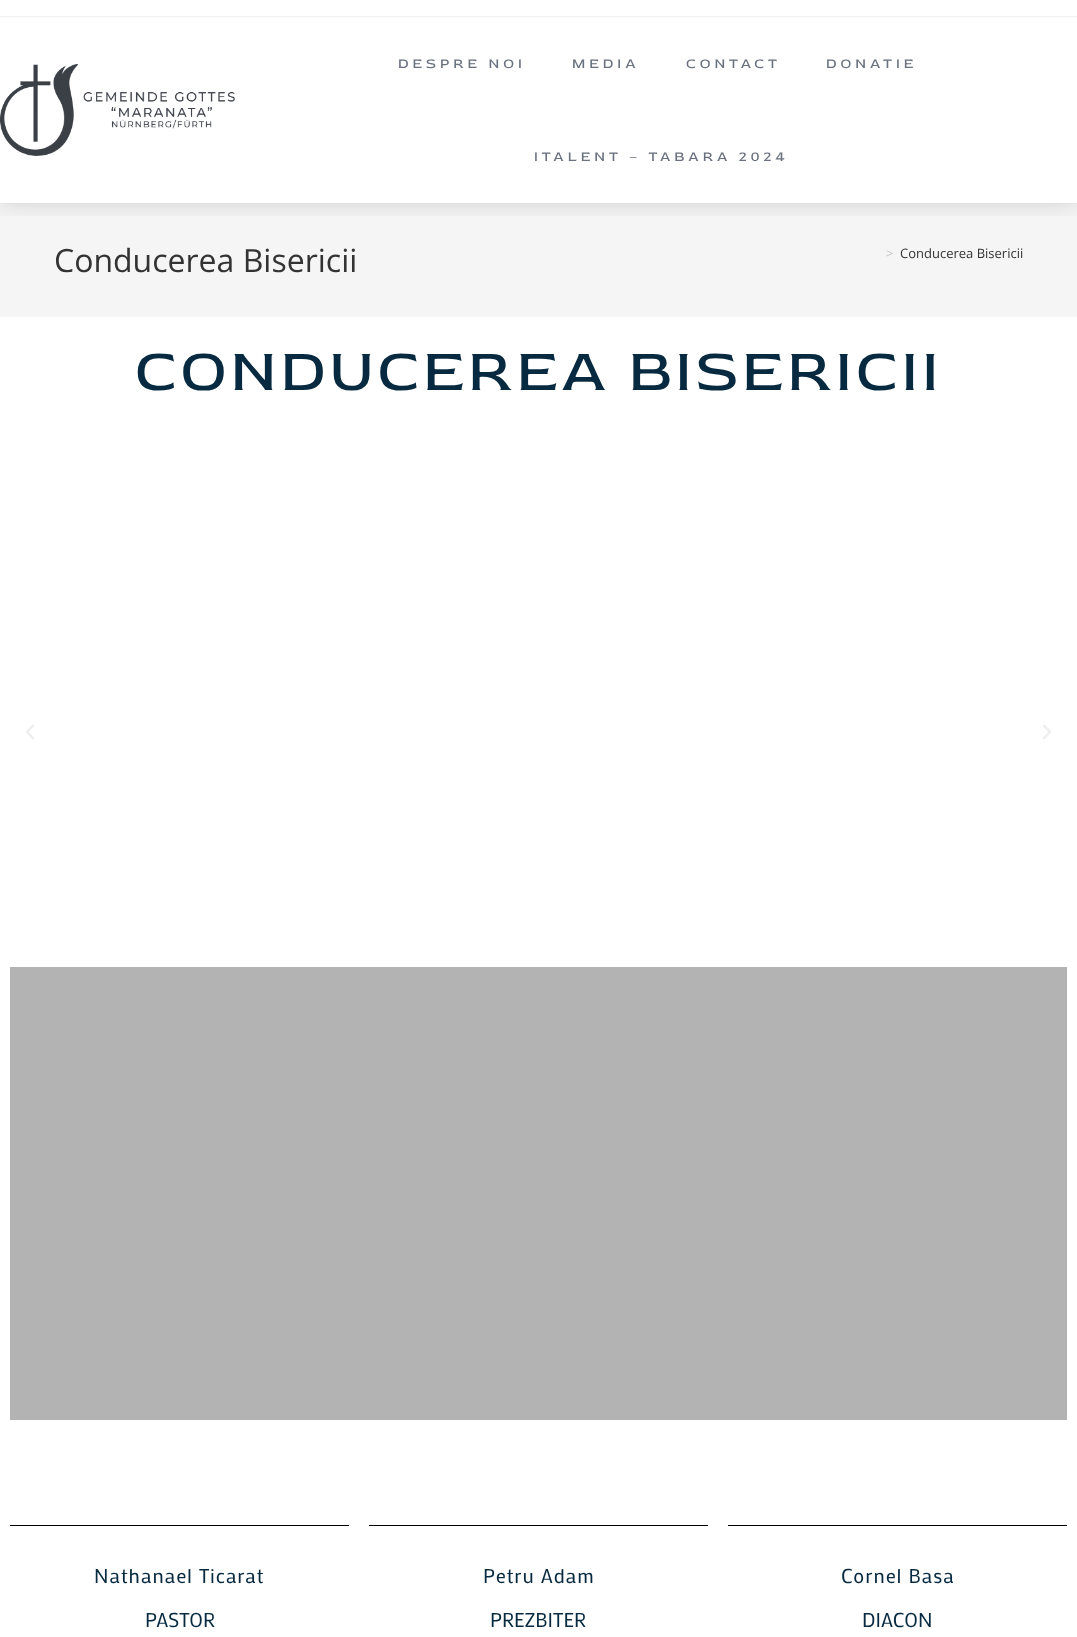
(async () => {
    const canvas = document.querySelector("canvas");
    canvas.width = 1077;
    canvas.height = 1637;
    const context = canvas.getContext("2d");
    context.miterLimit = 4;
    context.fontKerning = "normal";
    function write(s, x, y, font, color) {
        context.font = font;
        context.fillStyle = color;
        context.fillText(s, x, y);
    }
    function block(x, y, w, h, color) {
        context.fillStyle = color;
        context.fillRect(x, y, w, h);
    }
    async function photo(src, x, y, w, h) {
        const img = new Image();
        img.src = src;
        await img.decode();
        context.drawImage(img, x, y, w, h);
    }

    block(0, 0, 1077, 1637, "rgb(255, 255, 255)");
    block(0, 203, 1077, 1, "rgb(241, 241, 241)");
    block(0, 204, 1077, 113, "rgb(245, 245, 245)");
    context.save();
    context.beginPath();
    context.rect(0, 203, 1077, 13);
    context.clip();
    context.fillStyle = "rgba(0, 0, 0, 0.15)";
    context.filter = "blur(12px)";
    context.beginPath();
    context.rect(0, 17, 1077, 186);
    context.fill();
    context.filter = "none";
    context.restore();
    block(0, 0, 1077, 16, "rgb(255, 255, 255)");
    block(0, 16, 1077, 1, "rgb(241, 241, 241)");
    await photo("media/1.png", 0, 64, 235, 92);
    context.letterSpacing = "4px";
    write("DESPRE NOI", 398, 68, "14px Red Rose", "rgb(105, 113, 126)");
    write("MEDIA", 572, 68, "14px Red Rose", "rgb(105, 113, 126)");
    write("CONTACT", 686, 68, "14px Red Rose", "rgb(105, 113, 126)");
    write("DONATIE", 826, 68, "14px Red Rose", "rgb(105, 113, 126)");
    write("ITALENT – TABARA 2024", 534, 161, "14px Red Rose", "rgb(105, 113, 126)");
    context.letterSpacing = "0px";
    write("Conducerea Bisericii", 54, 272, "32px Open Sans", "rgb(51, 51, 51)");
    write(">", 886, 258, "13px Open Sans", "rgb(198, 198, 198)");
    write("Conducerea Bisericii", 900, 258, "13px Open Sans", "rgb(51, 51, 51)");
    context.letterSpacing = "4px";
    write("CONDUCEREA BISERICII", 135, 390, "60px Red Rose", "rgb(7, 42, 64)");
    await photo("media/2.png", 26, 724, 8, 16);
    await photo("media/3.png", 1043, 724, 8, 16);
    block(10, 967, 1057, 453, "rgb(179, 179, 179)");
    block(10, 1525, 339, 1, "rgb(0, 0, 0)");
    context.letterSpacing = "1px";
    write("Nathanael Ticarat", 94, 1583, "20px Mako", "rgb(7, 42, 64)");
    context.letterSpacing = "0px";
    write("PASTOR", 145, 1627, "20px Mako", "rgb(7, 42, 64)");
    block(369, 1525, 339, 1, "rgb(0, 0, 0)");
    context.letterSpacing = "1px";
    write("Petru Adam", 483, 1583, "20px Mako", "rgb(7, 42, 64)");
    context.letterSpacing = "0px";
    write("PREZBITER", 490, 1627, "20px Mako", "rgb(7, 42, 64)");
    block(728, 1525, 339, 1, "rgb(0, 0, 0)");
    context.letterSpacing = "1px";
    write("Cornel Basa", 841, 1583, "20px Mako", "rgb(7, 42, 64)");
    context.letterSpacing = "0px";
    write("DIACON", 862, 1627, "20px Mako", "rgb(7, 42, 64)");
})();
